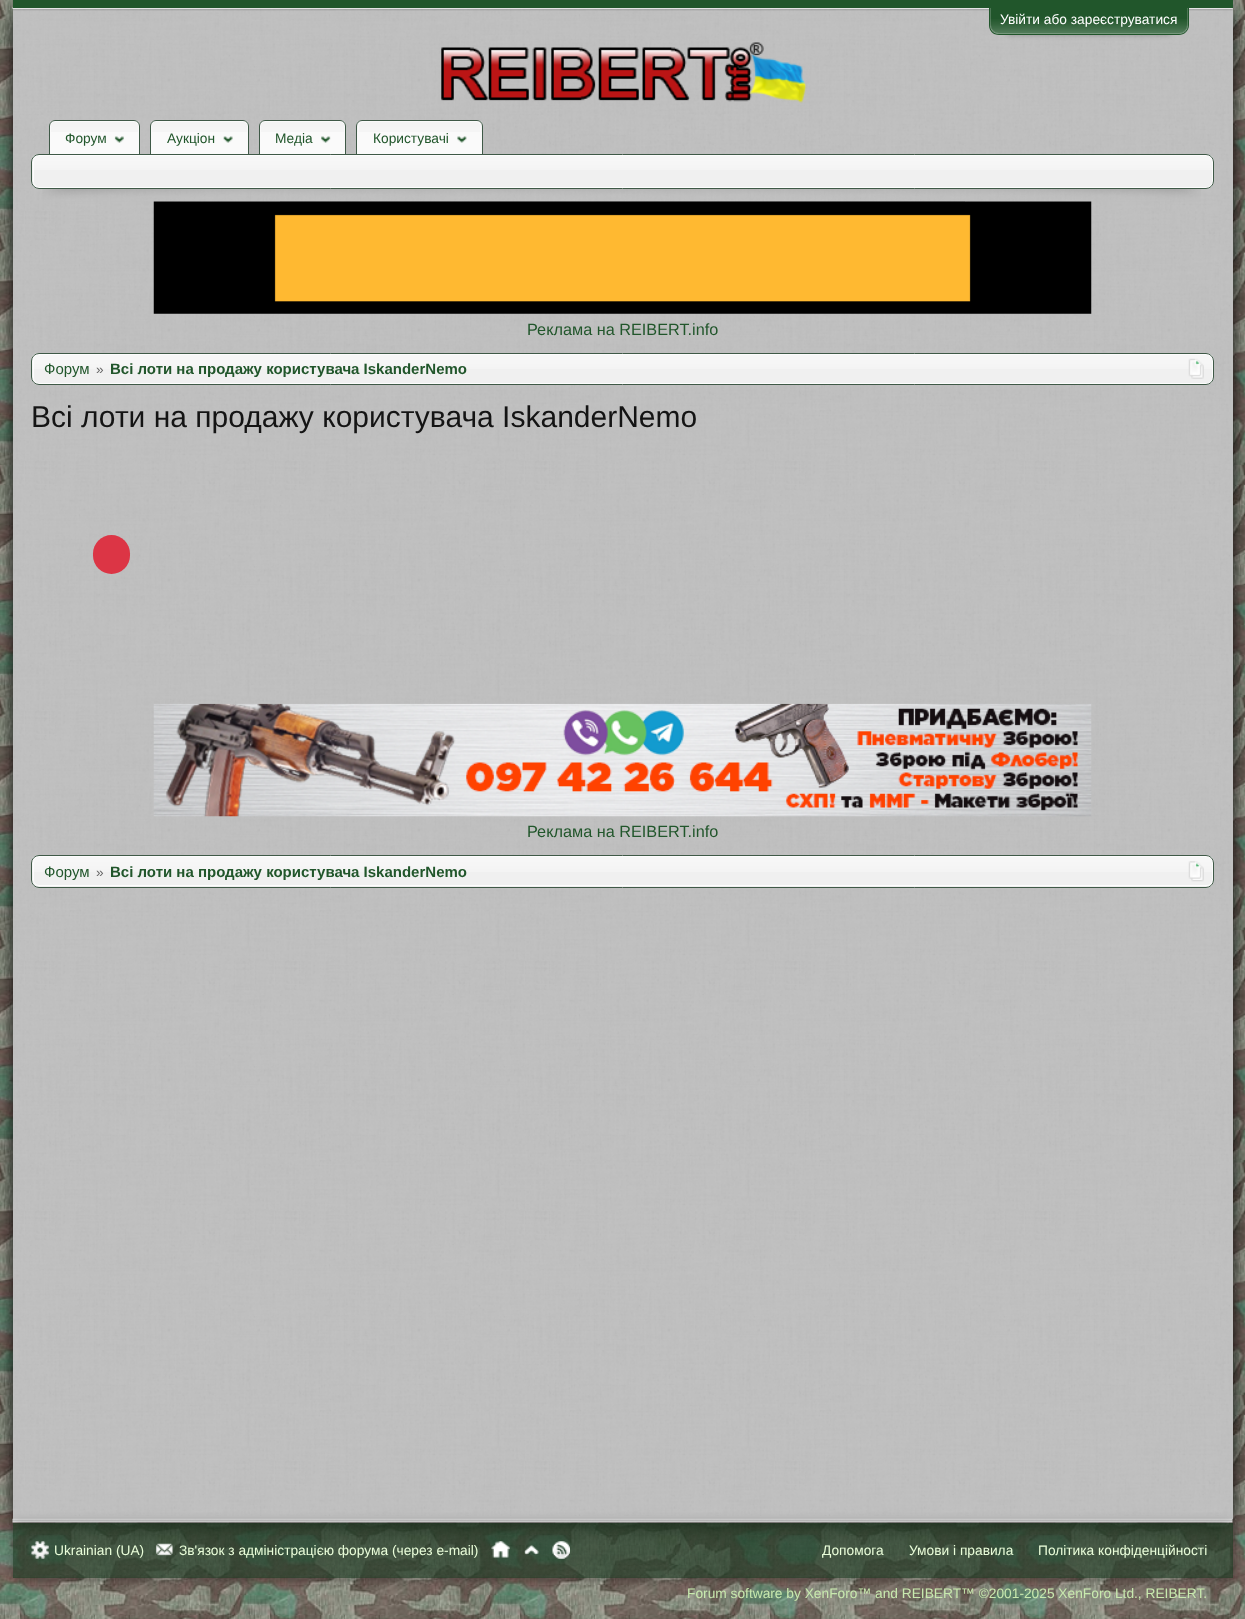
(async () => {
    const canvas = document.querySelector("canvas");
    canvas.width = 1245;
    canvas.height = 1619;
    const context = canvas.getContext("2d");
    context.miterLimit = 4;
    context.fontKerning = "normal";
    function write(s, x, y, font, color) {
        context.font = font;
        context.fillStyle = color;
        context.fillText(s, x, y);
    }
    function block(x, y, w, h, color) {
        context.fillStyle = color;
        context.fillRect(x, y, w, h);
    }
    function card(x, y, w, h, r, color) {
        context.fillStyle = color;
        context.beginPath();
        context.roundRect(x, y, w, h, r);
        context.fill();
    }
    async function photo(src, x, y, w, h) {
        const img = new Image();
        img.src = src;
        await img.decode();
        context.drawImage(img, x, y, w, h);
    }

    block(0, 0, 1245, 1619, "rgb(255, 255, 255)");
    await photo("media/1.png", 0, 0, 1245, 1619);
    context.fillStyle = "rgb(0, 0, 0)";
    context.filter = "blur(9.5px)";
    context.beginPath();
    context.rect(13, 14, 1220, 1511);
    context.fill();
    context.filter = "none";
    block(13, 8, 1220, 1511, "rgb(192, 192, 192)");
    await photo("media/3.png", 13, 8, 1218, 1508);
    await photo("media/4.png", 12, 7, 1221, 4);
    block(13, 0, 1220, 8, "rgb(33, 86, 43)");
    context.fillStyle = "rgba(0, 0, 0, 0.5)";
    context.filter = "blur(3px)";
    context.beginPath();
    context.roundRect(1006, 28, 165, 5, 5);
    context.fill();
    context.filter = "none";
    context.fillStyle = "rgb(33, 86, 43)";
    context.beginPath();
    context.roundRect(990, 8, 198, 26, [0, 0, 9, 9]);
    context.fill();
    await photo("media/2.png", 989, 19, 199, 16);
    context.save();
    context.beginPath();
    context.rect(989, 8, 200, 30);
    context.clip();
    context.beginPath();
    context.roundRect(990.5, 3.5, 197, 30, [0, 0, 8.5, 8.5]);
    context.strokeStyle = "rgba(255, 255, 255, 0.2)";
    context.stroke();
    context.beginPath();
    context.moveTo(989, 2);
    context.lineTo(1189, 2);
    context.lineTo(1189, 25);
    context.bezierCurveTo(1189, 31, 1184, 35, 1179, 35);
    context.lineTo(999, 35);
    context.bezierCurveTo(993, 35, 989, 31, 989, 25);
    context.closePath();
    context.moveTo(990, 2);
    context.lineTo(1188, 2);
    context.lineTo(1188, 25);
    context.bezierCurveTo(1188, 30, 1184, 34, 1179, 34);
    context.lineTo(999, 34);
    context.bezierCurveTo(994, 34, 990, 30, 990, 25);
    context.closePath();
    context.fill("evenodd");
    context.restore();
    write("Увійти або зареєструватися", 1000, 24, "13.75px Liberation Sans", "rgb(255, 255, 255)");
    await photo("media/5.png", 441, 42, 366, 61);
    context.fillStyle = "rgb(250, 250, 250)";
    context.beginPath();
    context.roundRect(49, 120, 91, 36, [6, 6, 0, 0]);
    context.fill();
    await photo("media/6.png", 49, 122, 91, 10);
    context.beginPath();
    context.roundRect(50.5, 121.5, 88, 33, [4.5, 4.5, 0, 0]);
    context.strokeStyle = "rgb(250, 250, 250)";
    context.stroke();
    context.beginPath();
    context.roundRect(49.5, 120.5, 90, 35, [5.5, 5.5, 0, 0]);
    context.strokeStyle = "rgb(63, 89, 71)";
    context.stroke();
    write("Форум", 65, 143, "13.75px Liberation Sans", "rgb(33, 86, 43)");
    await photo("media/7.png", 114, 136, 10, 7);
    context.fillStyle = "rgb(250, 250, 250)";
    context.beginPath();
    context.roundRect(150, 120, 99, 36, [6, 6, 0, 0]);
    context.fill();
    await photo("media/8.png", 150, 122, 98, 10);
    context.beginPath();
    context.roundRect(151.5, 121.5, 96, 33, [4.5, 4.5, 0, 0]);
    context.strokeStyle = "rgb(250, 250, 250)";
    context.stroke();
    context.beginPath();
    context.roundRect(150.5, 120.5, 98, 35, [5.5, 5.5, 0, 0]);
    context.strokeStyle = "rgb(63, 89, 71)";
    context.stroke();
    write("Аукціон", 167, 143, "13.75px Liberation Sans", "rgb(33, 86, 43)");
    await photo("media/9.png", 223, 136, 10, 7);
    context.fillStyle = "rgb(250, 250, 250)";
    context.beginPath();
    context.roundRect(259, 120, 87, 36, [6, 6, 0, 0]);
    context.fill();
    await photo("media/10.png", 259, 122, 87, 10);
    context.beginPath();
    context.roundRect(260.5, 121.5, 84, 33, [4.5, 4.5, 0, 0]);
    context.strokeStyle = "rgb(250, 250, 250)";
    context.stroke();
    context.beginPath();
    context.roundRect(259.5, 120.5, 86, 35, [5.5, 5.5, 0, 0]);
    context.strokeStyle = "rgb(63, 89, 71)";
    context.stroke();
    write("Медіа", 275, 143, "13.75px Liberation Sans", "rgb(33, 86, 43)");
    await photo("media/11.png", 321, 136, 10, 7);
    context.fillStyle = "rgb(250, 250, 250)";
    context.beginPath();
    context.roundRect(356, 120, 127, 36, [6, 6, 0, 0]);
    context.fill();
    await photo("media/12.png", 357, 122, 125, 10);
    context.beginPath();
    context.roundRect(358.5, 121.5, 122, 33, [4.5, 4.5, 0, 0]);
    context.strokeStyle = "rgb(250, 250, 250)";
    context.stroke();
    context.beginPath();
    context.roundRect(356.5, 120.5, 126, 35, [5.5, 5.5, 0, 0]);
    context.strokeStyle = "rgb(63, 89, 71)";
    context.stroke();
    write("Користувачі", 373, 143, "13.75px Liberation Sans", "rgb(33, 86, 43)");
    await photo("media/13.png", 457, 136, 10, 7);
    await photo("media/16.png", 153, 201, 939, 113);
    await photo("media/14.png", 42, 189, 1159, 13);
    card(31, 154, 1183, 35, 8, "rgb(240, 240, 240)");
    await photo("media/15.png", 31, 155, 1183, 15);
    context.beginPath();
    context.roundRect(33.5, 155.5, 1179, 32, 5.5);
    context.strokeStyle = "rgb(253, 253, 253)";
    context.stroke();
    context.beginPath();
    context.roundRect(31.5, 154.5, 1182, 34, 7.5);
    context.strokeStyle = "rgb(63, 89, 71)";
    context.stroke();
    write("Реклама на REIBERT.info", 527, 335, "16.25px Liberation Sans", "rgb(33, 86, 43)");
    card(31, 353, 1183, 32, 8, "rgb(240, 240, 240)");
    await photo("media/17.png", 32, 353, 1181, 16);
    context.beginPath();
    context.roundRect(33.5, 354.5, 1179, 29, 5.5);
    context.strokeStyle = "rgb(253, 253, 253)";
    context.stroke();
    context.beginPath();
    context.roundRect(31.5, 353.5, 1182, 31, 7.5);
    context.strokeStyle = "rgb(63, 89, 71)";
    context.stroke();
    write("Форум", 44, 374, "15px Liberation Sans", "rgb(33, 86, 43)");
    write("»", 96, 374, "13.75px Liberation Sans", "rgb(102, 102, 102)");
    write("Всі лоти на продажу користувача IskanderNemo", 110, 374, "bold 15px Liberation Sans", "rgb(33, 86, 43)");
    await photo("media/18.png", 1188, 358, 16, 21);
    write("Всі лоти на продажу користувача IskanderNemo", 31, 427, "30px Liberation Sans", "rgb(20, 20, 20)");
    card(93, 535, 37, 39, 18.5, "rgb(220, 53, 69)");
    await photo("media/19.png", 153, 703, 939, 114);
    write("Реклама на REIBERT.info", 527, 837, "16.25px Liberation Sans", "rgb(33, 86, 43)");
    card(31, 855, 1183, 33, 8, "rgb(240, 240, 240)");
    await photo("media/20.png", 32, 856, 1181, 16);
    context.beginPath();
    context.roundRect(33.5, 856.5, 1179, 29, 5.5);
    context.strokeStyle = "rgb(253, 253, 253)";
    context.stroke();
    context.beginPath();
    context.roundRect(31.5, 855.5, 1182, 32, 7.5);
    context.strokeStyle = "rgb(63, 89, 71)";
    context.stroke();
    write("Форум", 44, 877, "15px Liberation Sans", "rgb(33, 86, 43)");
    write("»", 96, 877, "13.75px Liberation Sans", "rgb(102, 102, 102)");
    write("Всі лоти на продажу користувача IskanderNemo", 110, 877, "bold 15px Liberation Sans", "rgb(33, 86, 43)");
    await photo("media/21.png", 1188, 861, 16, 21);
    await photo("media/22.png", 12, 1518, 1221, 5);
    context.save();
    context.beginPath();
    context.moveTo(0, 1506);
    context.lineTo(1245, 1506);
    context.lineTo(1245, 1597);
    context.lineTo(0, 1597);
    context.closePath();
    context.moveTo(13, 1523);
    context.lineTo(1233, 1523);
    context.lineTo(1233, 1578);
    context.lineTo(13, 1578);
    context.closePath();
    context.clip("evenodd");
    context.fillStyle = "rgba(0, 0, 0, 0.4)";
    context.filter = "blur(5.5px)";
    context.beginPath();
    context.rect(13, 1524, 1220, 55);
    context.fill();
    context.filter = "none";
    context.restore();
    block(13, 1523, 1220, 55, "rgba(28, 56, 33, 0.7)");
    await photo("media/23.png", 13, 1523, 1219, 54);
    await photo("media/24.png", 31, 1541, 18, 18);
    write("Ukrainian (UA)", 54, 1555, "13.75px Liberation Sans", "rgb(233, 253, 217)");
    await photo("media/25.png", 156, 1543, 17, 13);
    write("Зв'язок з адміністрацією форума (через e-mail)", 179, 1555, "13.75px Liberation Sans", "rgb(233, 253, 217)");
    await photo("media/26.png", 491, 1541, 19, 17);
    await photo("media/27.png", 524, 1545, 15, 10);
    await photo("media/28.png", 552, 1541, 18, 18);
    write("Допомога", 822, 1555, "13.75px Liberation Sans", "rgb(233, 253, 217)");
    write("Умови і правила", 909, 1555, "13.75px Liberation Sans", "rgb(233, 253, 217)");
    write("Політика конфіденційності", 1038, 1555, "13.75px Liberation Sans", "rgb(233, 253, 217)");
    write("Forum software by XenForo™ and REIBERT™ ©2001-2025 XenForo Ltd., REIBERT.", 687, 1598, "13.75px Liberation Sans", "rgb(200, 233, 174)");
})();
